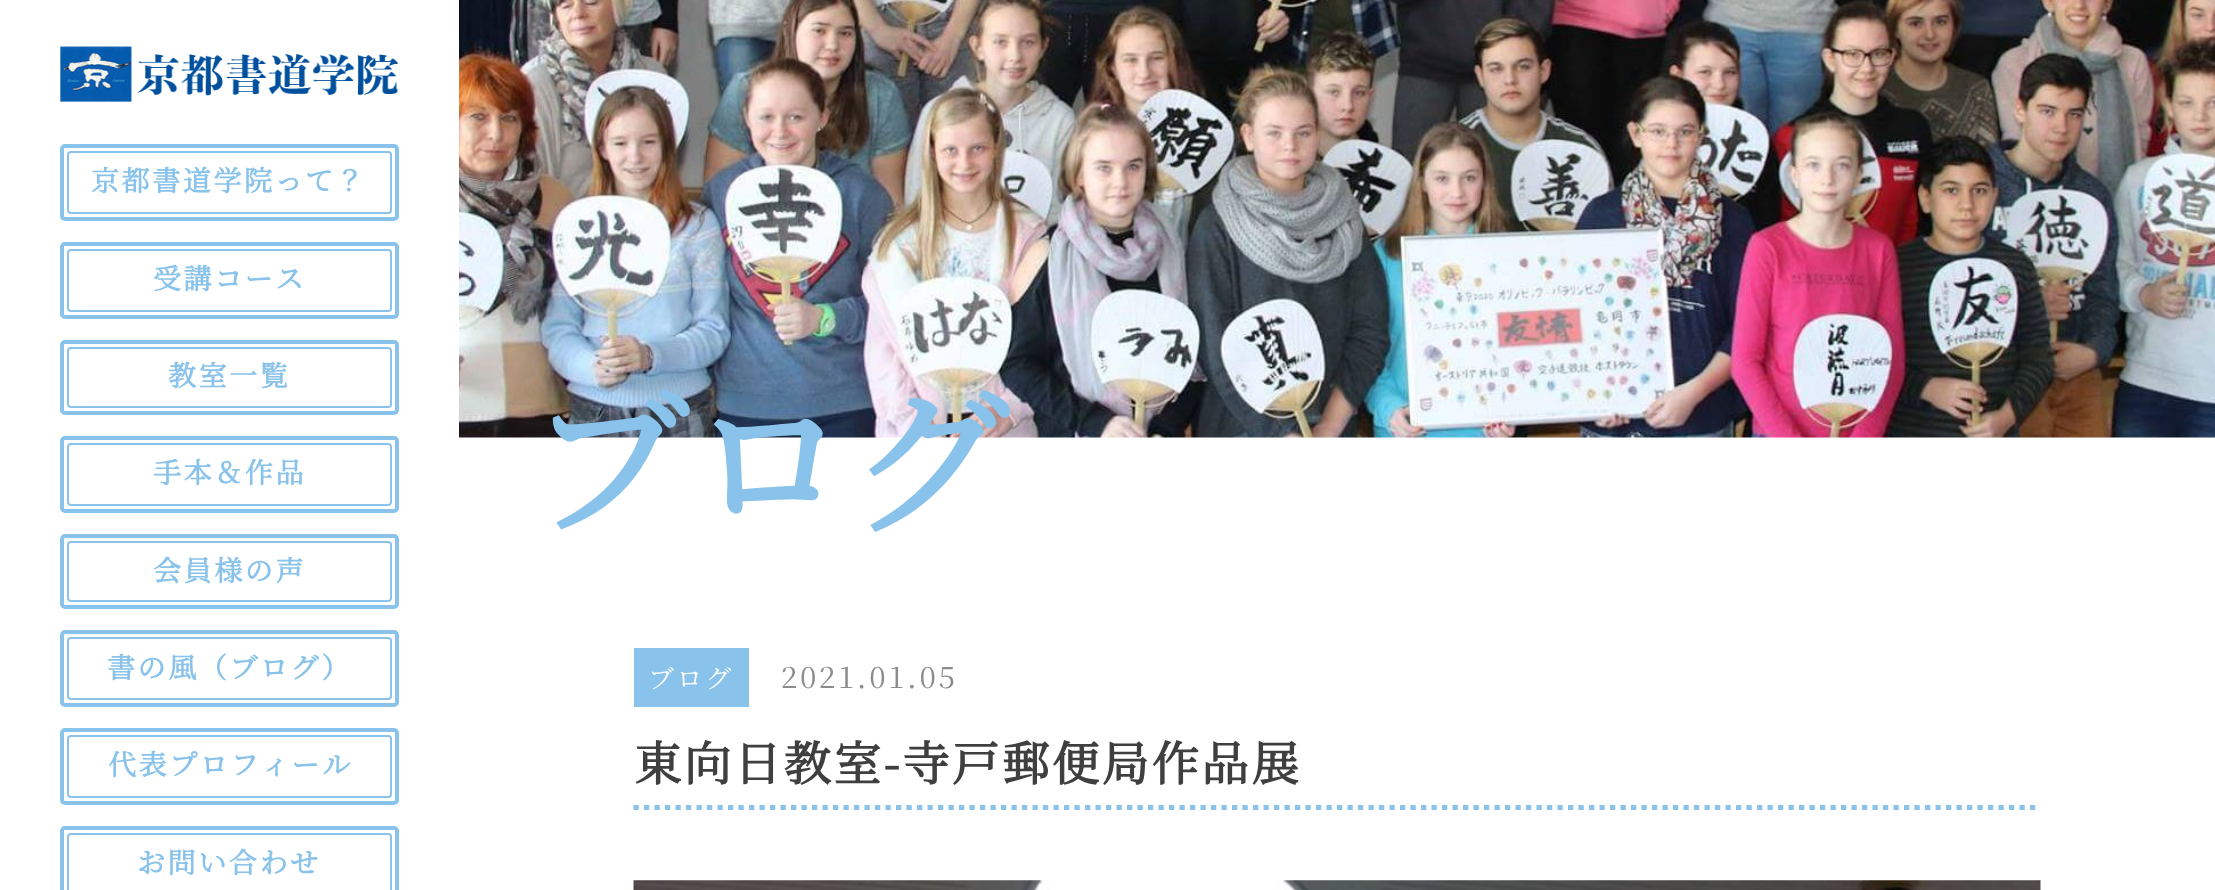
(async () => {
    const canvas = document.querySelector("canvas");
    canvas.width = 2215;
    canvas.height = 890;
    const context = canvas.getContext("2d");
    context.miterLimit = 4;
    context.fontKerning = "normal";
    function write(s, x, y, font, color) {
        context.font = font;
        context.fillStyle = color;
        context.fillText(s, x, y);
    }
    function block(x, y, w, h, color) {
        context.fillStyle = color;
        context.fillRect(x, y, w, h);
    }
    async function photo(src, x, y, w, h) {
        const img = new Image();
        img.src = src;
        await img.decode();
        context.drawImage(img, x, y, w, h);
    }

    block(0, 0, 2215, 890, "rgb(255, 255, 255)");
    await photo("media/1.png", 60, 46, 339, 56);
    context.beginPath();
    context.roundRect(62, 146, 335, 73, 3);
    context.strokeStyle = "rgb(137, 195, 235)";
    context.lineWidth = 4;
    context.stroke();
    context.beginPath();
    context.roundRect(68, 152, 323, 61, 3);
    context.lineWidth = 2;
    context.stroke();
    context.letterSpacing = "2.6px";
    write("京都書道学院って？", 91, 191, "bold 28px Noto Serif JP", "rgb(137, 195, 235)");
    context.beginPath();
    context.roundRect(62, 244, 335, 73, 3);
    context.lineWidth = 4;
    context.stroke();
    context.beginPath();
    context.roundRect(68, 250, 323, 61, 3);
    context.lineWidth = 2;
    context.stroke();
    write("受講コース", 153, 289, "bold 28px Noto Serif JP", "rgb(137, 195, 235)");
    context.beginPath();
    context.roundRect(62, 342, 335, 71, 3);
    context.lineWidth = 4;
    context.stroke();
    context.beginPath();
    context.roundRect(68, 348, 323, 59, 3);
    context.lineWidth = 2;
    context.stroke();
    write("教室一覧", 168, 386, "bold 28px Noto Serif JP", "rgb(137, 195, 235)");
    context.beginPath();
    context.roundRect(62, 438, 335, 73, 3);
    context.lineWidth = 4;
    context.stroke();
    context.beginPath();
    context.roundRect(68, 444, 323, 61, 3);
    context.lineWidth = 2;
    context.stroke();
    write("手本＆作品", 153, 483, "bold 28px Noto Serif JP", "rgb(137, 195, 235)");
    context.beginPath();
    context.roundRect(62, 536, 335, 71, 3);
    context.lineWidth = 4;
    context.stroke();
    context.beginPath();
    context.roundRect(68, 542, 323, 59, 3);
    context.lineWidth = 2;
    context.stroke();
    write("会員様の声", 153, 581, "bold 28px Noto Serif JP", "rgb(137, 195, 235)");
    context.beginPath();
    context.roundRect(62, 632, 335, 73, 3);
    context.lineWidth = 4;
    context.stroke();
    context.beginPath();
    context.roundRect(68, 638, 323, 61, 3);
    context.lineWidth = 2;
    context.stroke();
    write("書の風（ブログ）", 107, 678, "bold 28px Noto Serif JP", "rgb(137, 195, 235)");
    context.beginPath();
    context.roundRect(62, 730, 335, 73, 3);
    context.lineWidth = 4;
    context.stroke();
    context.beginPath();
    context.roundRect(68, 736, 323, 61, 3);
    context.lineWidth = 2;
    context.stroke();
    write("代表プロフィール", 108, 775, "bold 28px Noto Serif JP", "rgb(137, 195, 235)");
    context.beginPath();
    context.roundRect(62, 828, 335, 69, 3);
    context.lineWidth = 4;
    context.stroke();
    context.beginPath();
    context.roundRect(68, 834, 323, 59, 3);
    context.lineWidth = 2;
    context.stroke();
    write("お問い合わせ", 137, 873, "bold 28px Noto Serif JP", "rgb(137, 195, 235)");
    await photo("media/2.png", 459, 0, 1756, 438);
    write("ブログ", 529, 522, "bold 157.5px Noto Serif JP", "rgb(137, 195, 235)");
    block(634, 648, 115, 59, "rgb(137, 195, 235)");
    write("ブログ", 648, 688, "200 26px Noto Serif JP", "rgb(255, 255, 255)");
    write("2021.01.05", 781, 688, "200 29.75px Noto Serif JP", "rgb(140, 140, 140)");
    context.beginPath();
    context.moveTo(633.5, 807.5);
    context.lineTo(2040.5, 807.5);
    context.lineWidth = 5.2;
    context.setLineDash([5.25, 5.25]);
    context.stroke();
    write("東向日教室-寺戸郵便局作品展", 634, 781, "bold 47.25px Noto Serif JP", "rgb(63, 63, 63)");
    await photo("media/3.png", 633, 880, 1408, 10);
})();
